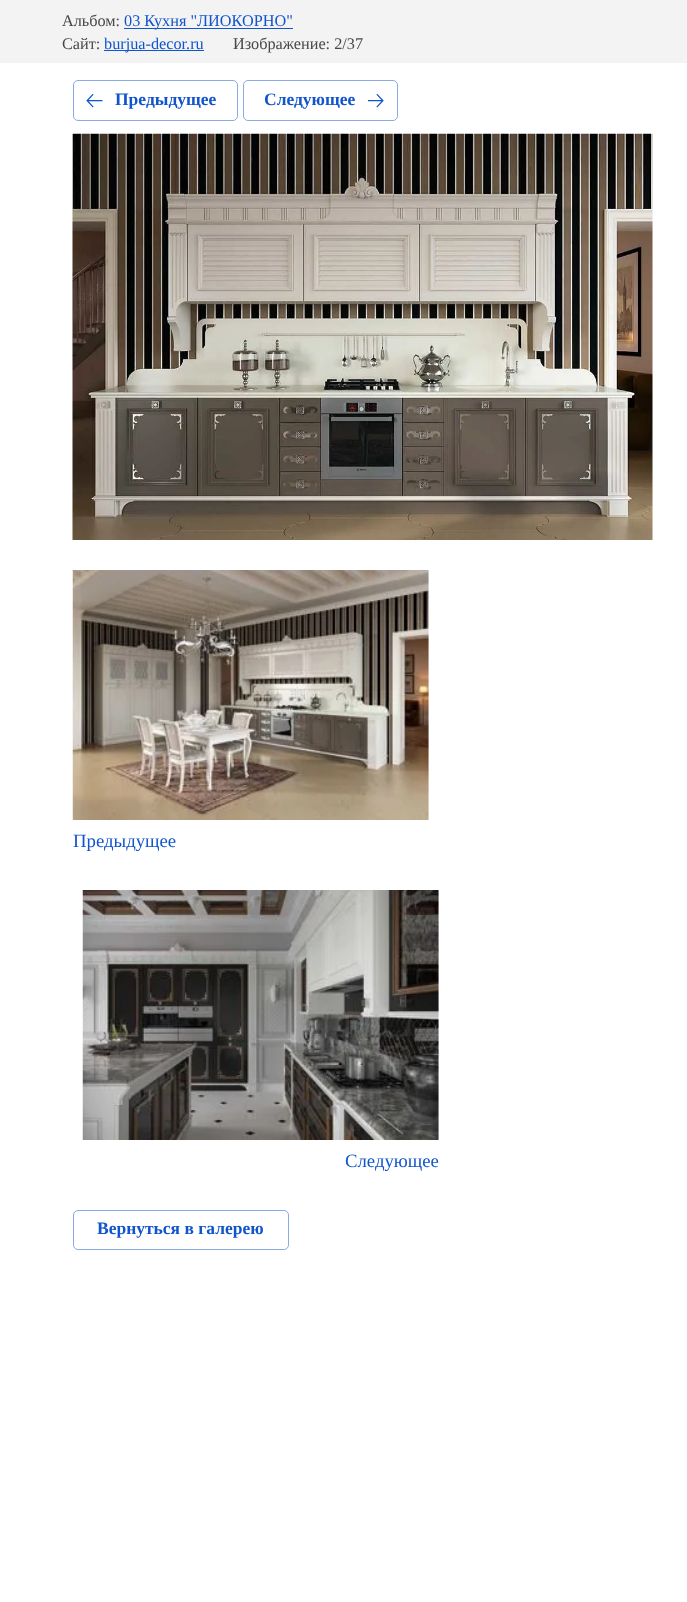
(async () => {
    const canvas = document.querySelector("canvas");
    canvas.width = 687;
    canvas.height = 1602;
    const context = canvas.getContext("2d");
    context.miterLimit = 4;
    context.fontKerning = "normal";
    function write(s, x, y, font, color) {
        context.font = font;
        context.fillStyle = color;
        context.fillText(s, x, y);
    }
    function block(x, y, w, h, color) {
        context.fillStyle = color;
        context.fillRect(x, y, w, h);
    }
    async function photo(src, x, y, w, h) {
        const img = new Image();
        img.src = src;
        await img.decode();
        context.drawImage(img, x, y, w, h);
    }

    block(0, 0, 687, 1602, "rgb(255, 255, 255)");
    block(0, 0, 687, 63, "rgb(243, 243, 243)");
    write("Альбом:", 62, 26, "16.25px Liberation Serif", "rgb(72, 72, 72)");
    block(124, 28, 169, 1, "rgb(17, 85, 204)");
    write("03 Кухня \"ЛИОКОРНО\"", 124, 26, "16.25px Liberation Serif", "rgb(17, 85, 204)");
    write("Сайт:", 62, 49, "16.25px Liberation Serif", "rgb(72, 72, 72)");
    block(104, 50, 100, 1, "rgb(17, 85, 204)");
    write("burjua-decor.ru", 104, 49, "16.25px Liberation Serif", "rgb(17, 85, 204)");
    write("Изображение: 2/37", 233, 49, "16.25px Liberation Serif", "rgb(72, 72, 72)");
    context.beginPath();
    context.roundRect(73.5, 80.5, 164, 40, 4.5);
    context.strokeStyle = "rgb(136, 170, 230)";
    context.stroke();
    await photo("media/1.png", 86, 94, 17, 14);
    write("Предыдущее", 115, 105, "bold 17.5px Liberation Serif", "rgb(17, 85, 204)");
    context.beginPath();
    context.roundRect(243.5, 80.5, 154, 40, 4.5);
    context.stroke();
    write("Следующее", 264, 105, "bold 17.5px Liberation Serif", "rgb(17, 85, 204)");
    await photo("media/2.png", 368, 94, 16, 14);
    await photo("media/3.png", 72, 133, 581, 407);
    await photo("media/4.png", 72, 570, 357, 250);
    write("Предыдущее", 73, 847, "18.75px Liberation Serif", "rgb(17, 85, 204)");
    await photo("media/5.png", 82, 890, 357, 250);
    write("Следующее", 345, 1167, "18.75px Liberation Serif", "rgb(17, 85, 204)");
    context.beginPath();
    context.roundRect(73.5, 1210.5, 215, 39, 4.5);
    context.stroke();
    write("Вернуться в галерею", 97, 1234, "bold 17.5px Liberation Serif", "rgb(17, 85, 204)");
})();
